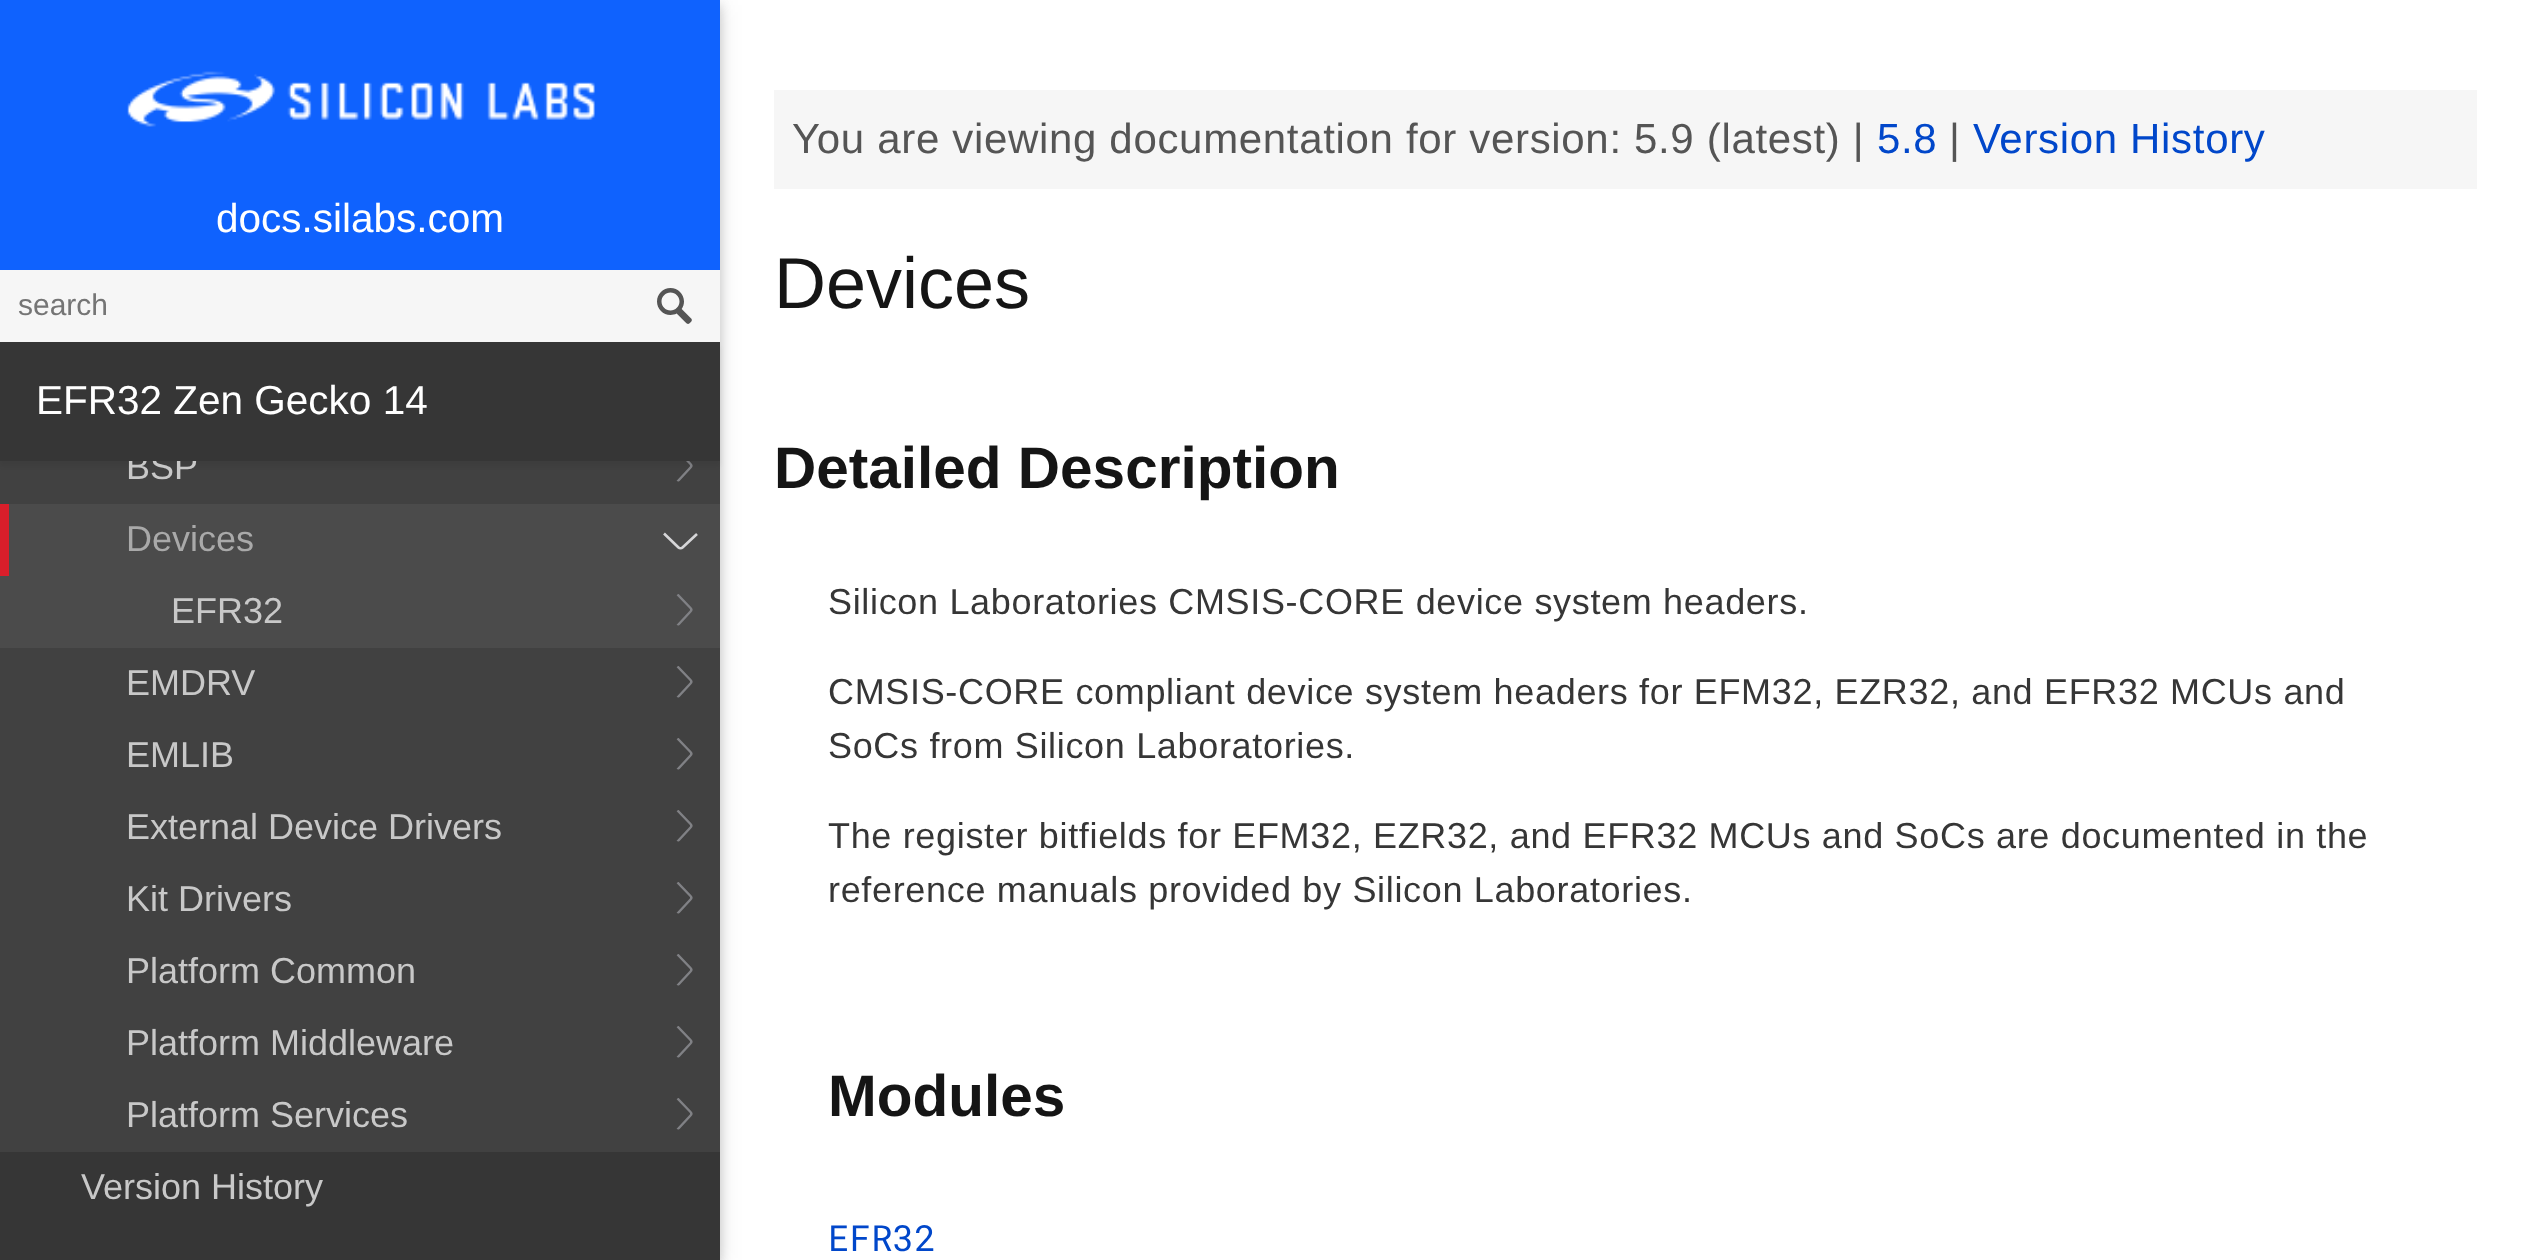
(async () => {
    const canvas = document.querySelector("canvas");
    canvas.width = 2531;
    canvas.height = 1260;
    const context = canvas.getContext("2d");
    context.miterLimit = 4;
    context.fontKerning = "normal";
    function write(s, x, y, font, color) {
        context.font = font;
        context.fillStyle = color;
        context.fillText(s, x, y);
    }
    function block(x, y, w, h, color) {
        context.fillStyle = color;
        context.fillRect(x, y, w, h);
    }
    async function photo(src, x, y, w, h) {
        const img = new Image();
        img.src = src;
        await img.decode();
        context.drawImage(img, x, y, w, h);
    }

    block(0, 0, 2531, 1260, "rgb(255, 255, 255)");
    context.fillStyle = "rgba(0, 0, 0, 0.12)";
    context.filter = "blur(11px)";
    context.beginPath();
    context.rect(0, 5, 720, 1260);
    context.fill();
    context.filter = "none";
    context.fillStyle = "rgba(0, 0, 0, 0.16)";
    context.filter = "blur(5.5px)";
    context.beginPath();
    context.rect(0, 5, 720, 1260);
    context.fill();
    context.filter = "none";
    block(0, 0, 720, 270, "rgb(15, 98, 254)");
    await photo("media/1.png", 127, 71, 468, 56);
    write("docs.silabs.com", 216, 232, "40.5px Liberation Sans", "rgb(255, 255, 255)");
    block(0, 270, 720, 72, "rgb(246, 246, 246)");
    write("search", 18, 315, "30px Liberation Sans", "rgb(117, 117, 117)");
    await photo("media/2.png", 657, 288, 35, 36);
    block(0, 1152, 720, 108, "rgb(54, 54, 54)");
    block(0, 461, 720, 691, "rgb(65, 65, 65)");
    context.save();
    context.beginPath();
    context.moveTo(675, 481.5);
    context.lineTo(675, 450);
    context.lineTo(694.5, 450);
    context.lineTo(694.5, 481.5);
    context.closePath();
    context.clip();
    context.beginPath();
    context.moveTo(677.5, 450.5);
    context.lineTo(690.5, 464);
    context.bezierCurveTo(691.5, 465, 691.5, 466.5, 690.5, 467.5);
    context.lineTo(677.5, 481.5);
    context.strokeStyle = "rgb(128, 129, 133)";
    context.lineWidth = 2.4;
    context.stroke();
    context.restore();
    context.fillStyle = "rgba(0, 0, 0, 0.06)";
    context.filter = "blur(2px)";
    context.beginPath();
    context.rect(0, 347, 720, 119);
    context.fill();
    context.filter = "none";
    write("BSP", 126, 479, "36px Liberation Sans", "rgb(200, 200, 200)");
    block(0, 342, 720, 119, "rgb(54, 54, 54)");
    write("EFR32 Zen Gecko 14", 36, 414, "40.5px Liberation Sans", "rgb(255, 255, 255)");
    block(9, 504, 711, 72, "rgb(75, 75, 75)");
    block(0, 504, 9, 72, "rgb(217, 30, 42)");
    write("Devices", 126, 551, "36px Liberation Sans", "rgb(169, 169, 169)");
    block(0, 576, 720, 72, "rgb(75, 75, 75)");
    context.beginPath();
    context.moveTo(697, 534);
    context.lineTo(682.5, 547.5);
    context.bezierCurveTo(681.5, 548.5, 679.5, 548.5, 678.5, 547.5);
    context.lineTo(664, 533.5);
    context.strokeStyle = "rgb(214, 214, 216)";
    context.lineWidth = 2.6;
    context.stroke();
    write("EFR32", 171, 623, "36px Liberation Sans", "rgb(200, 200, 200)");
    context.save();
    context.beginPath();
    context.moveTo(675, 625.5);
    context.lineTo(675, 594);
    context.lineTo(694.5, 594);
    context.lineTo(694.5, 625.5);
    context.closePath();
    context.clip();
    context.beginPath();
    context.moveTo(677.5, 594.5);
    context.lineTo(690.5, 608);
    context.bezierCurveTo(691.5, 609, 691.5, 610.5, 690.5, 611.5);
    context.lineTo(677.5, 625.5);
    context.strokeStyle = "rgb(128, 129, 133)";
    context.lineWidth = 2.4;
    context.stroke();
    context.restore();
    write("EMDRV", 126, 695, "36px Liberation Sans", "rgb(200, 200, 200)");
    context.save();
    context.beginPath();
    context.moveTo(675, 697.5);
    context.lineTo(675, 666);
    context.lineTo(694.5, 666);
    context.lineTo(694.5, 697.5);
    context.closePath();
    context.clip();
    context.beginPath();
    context.moveTo(677.5, 666.5);
    context.lineTo(690.5, 680);
    context.bezierCurveTo(691.5, 681, 691.5, 682.5, 690.5, 683.5);
    context.lineTo(677.5, 697.5);
    context.strokeStyle = "rgb(128, 129, 133)";
    context.lineWidth = 2.4;
    context.stroke();
    context.restore();
    write("EMLIB", 126, 767, "36px Liberation Sans", "rgb(200, 200, 200)");
    context.save();
    context.beginPath();
    context.moveTo(675, 769.5);
    context.lineTo(675, 738);
    context.lineTo(694.5, 738);
    context.lineTo(694.5, 769.5);
    context.closePath();
    context.clip();
    context.beginPath();
    context.moveTo(677.5, 738.5);
    context.lineTo(690.5, 752);
    context.bezierCurveTo(691.5, 753, 691.5, 754.5, 690.5, 755.5);
    context.lineTo(677.5, 769.5);
    context.strokeStyle = "rgb(128, 129, 133)";
    context.lineWidth = 2.4;
    context.stroke();
    context.restore();
    write("External Device Drivers", 126, 839, "36px Liberation Sans", "rgb(200, 200, 200)");
    context.save();
    context.beginPath();
    context.moveTo(675, 841.5);
    context.lineTo(675, 810);
    context.lineTo(694.5, 810);
    context.lineTo(694.5, 841.5);
    context.closePath();
    context.clip();
    context.beginPath();
    context.moveTo(677.5, 810.5);
    context.lineTo(690.5, 824);
    context.bezierCurveTo(691.5, 825, 691.5, 826.5, 690.5, 827.5);
    context.lineTo(677.5, 841.5);
    context.strokeStyle = "rgb(128, 129, 133)";
    context.lineWidth = 2.4;
    context.stroke();
    context.restore();
    write("Kit Drivers", 126, 911, "36px Liberation Sans", "rgb(200, 200, 200)");
    context.save();
    context.beginPath();
    context.moveTo(675, 913.5);
    context.lineTo(675, 882);
    context.lineTo(694.5, 882);
    context.lineTo(694.5, 913.5);
    context.closePath();
    context.clip();
    context.beginPath();
    context.moveTo(677.5, 882.5);
    context.lineTo(690.5, 896);
    context.bezierCurveTo(691.5, 897, 691.5, 898.5, 690.5, 899.5);
    context.lineTo(677.5, 913.5);
    context.strokeStyle = "rgb(128, 129, 133)";
    context.lineWidth = 2.4;
    context.stroke();
    context.restore();
    write("Platform Common", 126, 983, "36px Liberation Sans", "rgb(200, 200, 200)");
    context.save();
    context.beginPath();
    context.moveTo(675, 985.5);
    context.lineTo(675, 954);
    context.lineTo(694.5, 954);
    context.lineTo(694.5, 985.5);
    context.closePath();
    context.clip();
    context.beginPath();
    context.moveTo(677.5, 954.5);
    context.lineTo(690.5, 968);
    context.bezierCurveTo(691.5, 969, 691.5, 970.5, 690.5, 971.5);
    context.lineTo(677.5, 985.5);
    context.strokeStyle = "rgb(128, 129, 133)";
    context.lineWidth = 2.4;
    context.stroke();
    context.restore();
    write("Platform Middleware", 126, 1055, "36px Liberation Sans", "rgb(200, 200, 200)");
    context.save();
    context.beginPath();
    context.moveTo(675, 1057.5);
    context.lineTo(675, 1026);
    context.lineTo(694.5, 1026);
    context.lineTo(694.5, 1057.5);
    context.closePath();
    context.clip();
    context.beginPath();
    context.moveTo(677.5, 1026.5);
    context.lineTo(690.5, 1040);
    context.bezierCurveTo(691.5, 1041, 691.5, 1042.5, 690.5, 1043.5);
    context.lineTo(677.5, 1057.5);
    context.strokeStyle = "rgb(128, 129, 133)";
    context.lineWidth = 2.4;
    context.stroke();
    context.restore();
    write("Platform Services", 126, 1127, "36px Liberation Sans", "rgb(200, 200, 200)");
    context.save();
    context.beginPath();
    context.moveTo(675, 1129.5);
    context.lineTo(675, 1098);
    context.lineTo(694.5, 1098);
    context.lineTo(694.5, 1129.5);
    context.closePath();
    context.clip();
    context.beginPath();
    context.moveTo(677.5, 1098.5);
    context.lineTo(690.5, 1112);
    context.bezierCurveTo(691.5, 1113, 691.5, 1114.5, 690.5, 1115.5);
    context.lineTo(677.5, 1129.5);
    context.strokeStyle = "rgb(128, 129, 133)";
    context.lineWidth = 2.4;
    context.stroke();
    context.restore();
    write("Version History", 81, 1199, "36px Liberation Sans", "rgb(200, 200, 200)");
    block(774, 90, 1703, 99, "rgb(246, 246, 246)");
    context.letterSpacing = "0.67px";
    write("You are viewing documentation for version:", 792, 153, "42px Liberation Sans", "rgb(85, 85, 85)");
    write("5.9 (latest) |", 1634, 153, "42px Liberation Sans", "rgb(85, 85, 85)");
    write("5.8", 1877, 153, "42px Liberation Sans", "rgb(1, 71, 202)");
    write("|", 1949, 153, "42px Liberation Sans", "rgb(85, 85, 85)");
    write("Version History", 1973, 153, "42px Liberation Sans", "rgb(1, 71, 202)");
    context.letterSpacing = "0px";
    write("Devices", 774, 308, "72px Liberation Sans", "rgb(21, 21, 21)");
    write("Detailed Description", 774, 488, "bold 58.5px Liberation Sans", "rgb(21, 21, 21)");
    context.letterSpacing = "0.67px";
    write("Silicon Laboratories CMSIS-CORE device system headers.", 828, 614, "36px Liberation Sans", "rgb(54, 54, 54)");
    write("CMSIS-CORE compliant device system headers for EFM32, EZR32, and EFR32 MCUs and", 828, 704, "36px Liberation Sans", "rgb(54, 54, 54)");
    write("SoCs from Silicon Laboratories.", 828, 758, "36px Liberation Sans", "rgb(54, 54, 54)");
    write("The register bitfields for EFM32, EZR32, and EFR32 MCUs and SoCs are documented in the", 828, 848, "36px Liberation Sans", "rgb(54, 54, 54)");
    write("reference manuals provided by Silicon Laboratories.", 828, 902, "36px Liberation Sans", "rgb(54, 54, 54)");
    context.letterSpacing = "0px";
    write("Modules", 828, 1116, "bold 58.5px Liberation Sans", "rgb(21, 21, 21)");
    write("EFR32", 828, 1251, "36px Roboto Mono", "rgb(1, 71, 202)");
})();
